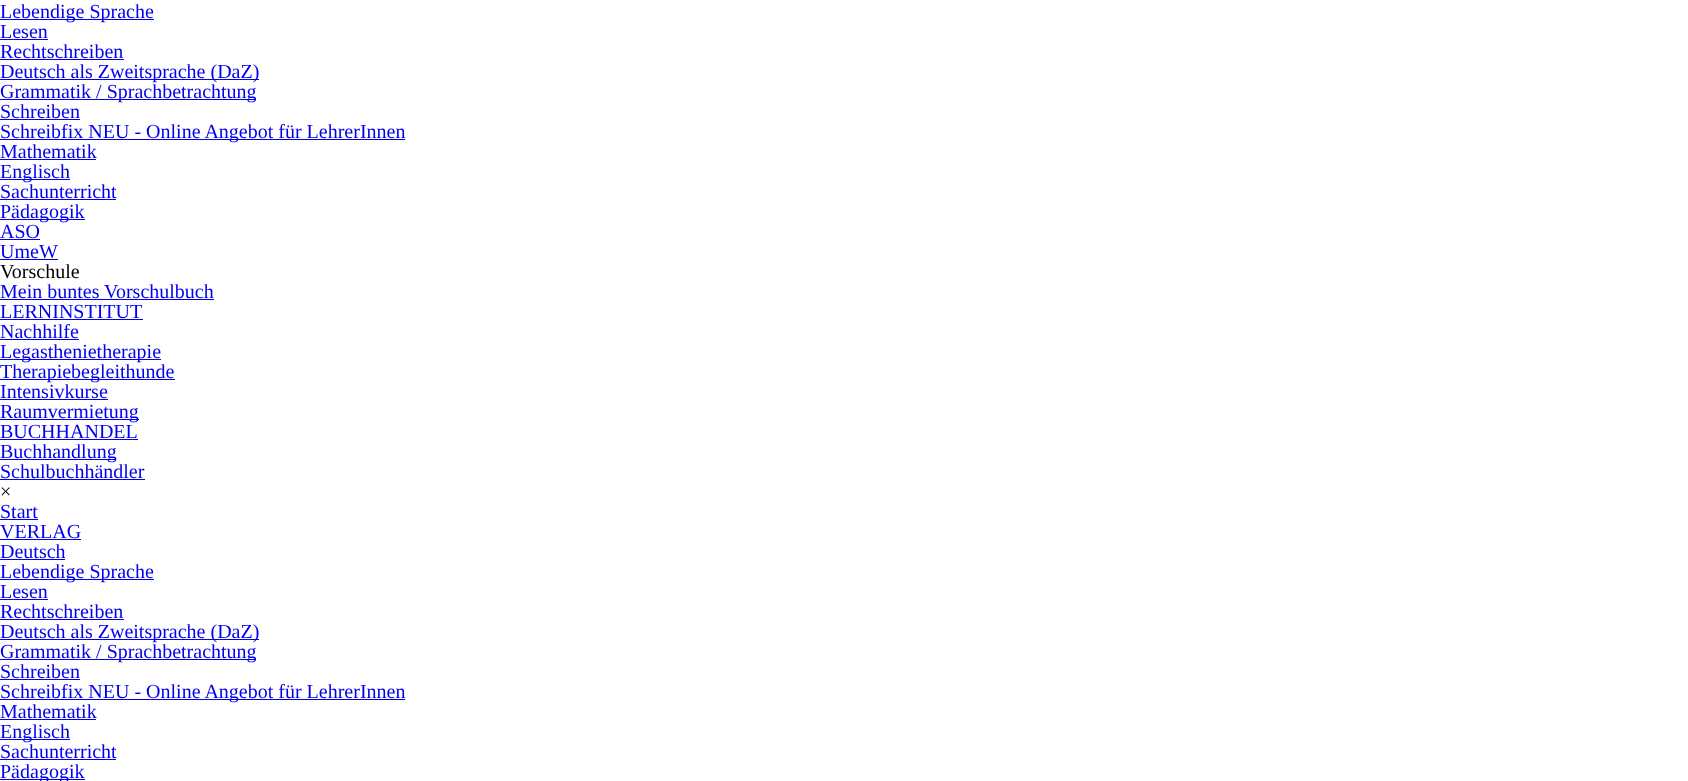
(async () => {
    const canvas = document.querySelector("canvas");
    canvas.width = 1688;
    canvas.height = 781;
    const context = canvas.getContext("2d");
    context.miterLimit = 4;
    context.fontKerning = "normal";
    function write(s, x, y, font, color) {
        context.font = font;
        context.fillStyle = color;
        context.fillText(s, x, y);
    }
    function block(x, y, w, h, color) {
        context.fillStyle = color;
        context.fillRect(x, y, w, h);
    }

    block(0, 0, 1688, 781, "rgb(255, 255, 255)");
    block(0, 19, 154, 1, "rgb(0, 0, 238)");
    write("Lebendige Sprache", 0, 18, "20px Liberation Serif", "rgb(0, 0, 238)");
    write("Lesen", 0, 38, "20px Liberation Serif", "rgb(0, 0, 238)");
    block(0, 39, 48, 1, "rgb(0, 0, 238)");
    write("Rechtschreiben", 0, 58, "20px Liberation Serif", "rgb(0, 0, 238)");
    block(0, 59, 124, 1, "rgb(0, 0, 238)");
    block(0, 79, 259, 1, "rgb(0, 0, 238)");
    write("Deutsch als Zweitsprache (DaZ)", 0, 78, "20px Liberation Serif", "rgb(0, 0, 238)");
    block(0, 99, 256, 1, "rgb(0, 0, 238)");
    write("Grammatik / Sprachbetrachtung", 0, 98, "20px Liberation Serif", "rgb(0, 0, 238)");
    write("Schreiben", 0, 118, "20px Liberation Serif", "rgb(0, 0, 238)");
    block(0, 119, 80, 1, "rgb(0, 0, 238)");
    block(0, 139, 405, 1, "rgb(0, 0, 238)");
    write("Schreibfix NEU - Online Angebot für LehrerInnen", 0, 138, "20px Liberation Serif", "rgb(0, 0, 238)");
    write("Mathematik", 0, 158, "20px Liberation Serif", "rgb(0, 0, 238)");
    block(0, 159, 96, 1, "rgb(0, 0, 238)");
    block(0, 179, 70, 1, "rgb(0, 0, 238)");
    write("Englisch", 0, 178, "20px Liberation Serif", "rgb(0, 0, 238)");
    write("Sachunterricht", 0, 198, "20px Liberation Serif", "rgb(0, 0, 238)");
    block(0, 199, 116, 1, "rgb(0, 0, 238)");
    block(0, 219, 85, 1, "rgb(0, 0, 238)");
    write("Pädagogik", 0, 218, "20px Liberation Serif", "rgb(0, 0, 238)");
    write("ASO", 0, 238, "20px Liberation Serif", "rgb(0, 0, 238)");
    block(0, 239, 40, 1, "rgb(0, 0, 238)");
    write("UmeW", 0, 258, "20px Liberation Serif", "rgb(0, 0, 238)");
    block(0, 259, 58, 1, "rgb(0, 0, 238)");
    write("Vorschule", 0, 278, "20px Liberation Serif", "rgb(0, 0, 0)");
    write("Mein buntes Vorschulbuch", 0, 298, "20px Liberation Serif", "rgb(0, 0, 238)");
    block(0, 299, 214, 1, "rgb(0, 0, 238)");
    write("LERNINSTITUT", 0, 318, "20px Liberation Serif", "rgb(0, 0, 238)");
    block(0, 319, 143, 1, "rgb(0, 0, 238)");
    write("Nachhilfe", 0, 338, "20px Liberation Serif", "rgb(0, 0, 238)");
    block(0, 339, 79, 1, "rgb(0, 0, 238)");
    block(0, 359, 161, 1, "rgb(0, 0, 238)");
    write("Legasthenietherapie", 0, 358, "20px Liberation Serif", "rgb(0, 0, 238)");
    block(0, 379, 175, 1, "rgb(0, 0, 238)");
    write("Therapiebegleithunde", 0, 378, "20px Liberation Serif", "rgb(0, 0, 238)");
    write("Intensivkurse", 0, 398, "20px Liberation Serif", "rgb(0, 0, 238)");
    block(0, 399, 108, 1, "rgb(0, 0, 238)");
    block(0, 419, 139, 1, "rgb(0, 0, 238)");
    write("Raumvermietung", 0, 418, "20px Liberation Serif", "rgb(0, 0, 238)");
    write("BUCHHANDEL", 0, 438, "20px Liberation Serif", "rgb(0, 0, 238)");
    block(0, 439, 138, 1, "rgb(0, 0, 238)");
    block(0, 459, 116, 1, "rgb(0, 0, 238)");
    write("Buchhandlung", 0, 458, "20px Liberation Serif", "rgb(0, 0, 238)");
    write("Schulbuchhändler", 0, 478, "20px Liberation Serif", "rgb(0, 0, 238)");
    block(0, 479, 145, 1, "rgb(0, 0, 238)");
    write("×", 0, 498, "20px Liberation Serif", "rgb(0, 0, 0)");
    write("Start", 0, 518, "20px Liberation Serif", "rgb(0, 0, 238)");
    block(0, 519, 38, 1, "rgb(0, 0, 238)");
    write("VERLAG", 0, 538, "20px Liberation Serif", "rgb(0, 0, 238)");
    block(0, 539, 81, 1, "rgb(0, 0, 238)");
    write("Deutsch", 0, 558, "20px Liberation Serif", "rgb(0, 0, 238)");
    block(0, 559, 65, 1, "rgb(0, 0, 238)");
    block(0, 579, 154, 1, "rgb(0, 0, 238)");
    write("Lebendige Sprache", 0, 578, "20px Liberation Serif", "rgb(0, 0, 238)");
    write("Lesen", 0, 598, "20px Liberation Serif", "rgb(0, 0, 238)");
    block(0, 599, 48, 1, "rgb(0, 0, 238)");
    write("Rechtschreiben", 0, 618, "20px Liberation Serif", "rgb(0, 0, 238)");
    block(0, 619, 124, 1, "rgb(0, 0, 238)");
    block(0, 639, 259, 1, "rgb(0, 0, 238)");
    write("Deutsch als Zweitsprache (DaZ)", 0, 638, "20px Liberation Serif", "rgb(0, 0, 238)");
    block(0, 659, 256, 1, "rgb(0, 0, 238)");
    write("Grammatik / Sprachbetrachtung", 0, 658, "20px Liberation Serif", "rgb(0, 0, 238)");
    write("Schreiben", 0, 678, "20px Liberation Serif", "rgb(0, 0, 238)");
    block(0, 679, 80, 1, "rgb(0, 0, 238)");
    block(0, 699, 405, 1, "rgb(0, 0, 238)");
    write("Schreibfix NEU - Online Angebot für LehrerInnen", 0, 698, "20px Liberation Serif", "rgb(0, 0, 238)");
    write("Mathematik", 0, 718, "20px Liberation Serif", "rgb(0, 0, 238)");
    block(0, 719, 96, 1, "rgb(0, 0, 238)");
    block(0, 739, 70, 1, "rgb(0, 0, 238)");
    write("Englisch", 0, 738, "20px Liberation Serif", "rgb(0, 0, 238)");
    write("Sachunterricht", 0, 758, "20px Liberation Serif", "rgb(0, 0, 238)");
    block(0, 759, 116, 1, "rgb(0, 0, 238)");
    block(0, 779, 85, 1, "rgb(0, 0, 238)");
    write("Pädagogik", 0, 778, "20px Liberation Serif", "rgb(0, 0, 238)");
})();
